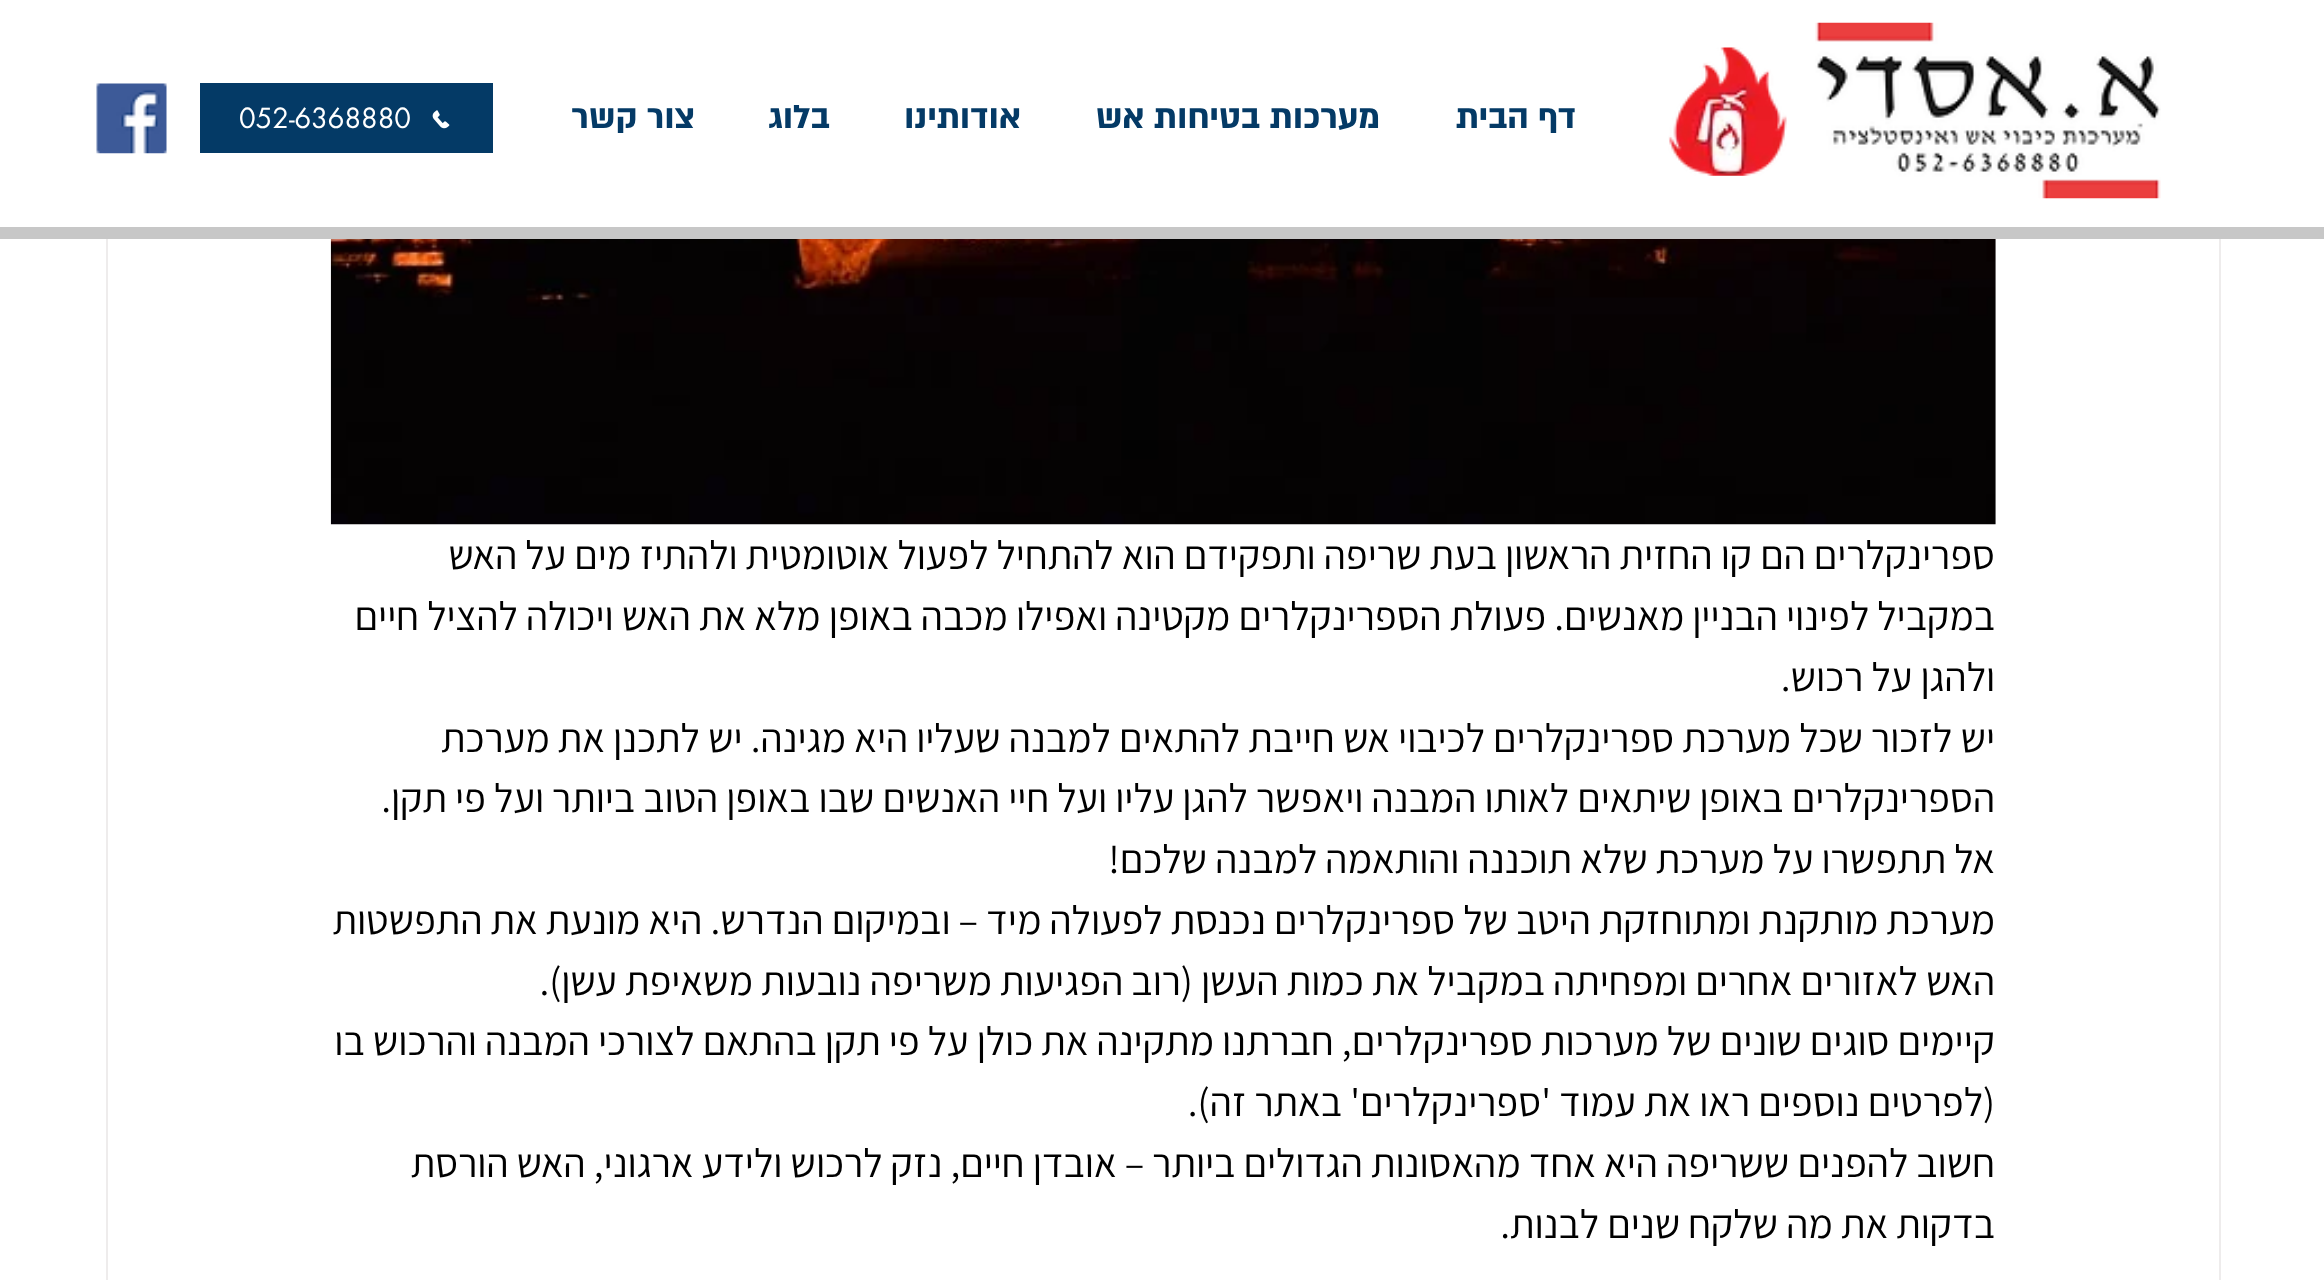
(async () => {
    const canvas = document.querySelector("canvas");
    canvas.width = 2324;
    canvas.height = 1280;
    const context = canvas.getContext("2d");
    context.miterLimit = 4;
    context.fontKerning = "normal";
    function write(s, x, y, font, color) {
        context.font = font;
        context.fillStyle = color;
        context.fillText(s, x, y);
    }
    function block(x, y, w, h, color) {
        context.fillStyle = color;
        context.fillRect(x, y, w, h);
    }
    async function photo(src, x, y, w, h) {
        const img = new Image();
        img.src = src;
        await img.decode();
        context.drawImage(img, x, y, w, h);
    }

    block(0, 0, 2324, 1280, "rgb(255, 255, 255)");
    context.strokeStyle = "rgb(238, 236, 236)";
    context.lineWidth = 2;
    context.strokeRect(107, -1, 2113, 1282);
    block(106, 0, 2115, 227, "rgb(255, 255, 255)");
    block(0, 227, 2324, 12, "rgb(199, 199, 199)");
    await photo("media/1.png", 1815, 22, 346, 177);
    await photo("media/2.png", 1668, 47, 119, 129);
    context.direction = "rtl";
    write("דף הבית", 1576, 128, "bold 38.25px 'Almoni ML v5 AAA'", "rgb(4, 58, 102)");
    write("מערכות בטיחות אש", 1380, 128, "bold 38.25px 'Almoni ML v5 AAA'", "rgb(4, 58, 102)");
    write("אודותינו", 1021, 128, "bold 38.25px 'Almoni ML v5 AAA'", "rgb(4, 58, 102)");
    write("בלוג", 830, 128, "bold 38.25px 'Almoni ML v5 AAA'", "rgb(4, 58, 102)");
    write("צור קשר", 695, 128, "bold 38.25px 'Almoni ML v5 AAA'", "rgb(4, 58, 102)");
    block(200, 83, 293, 70, "rgb(4, 58, 102)");
    await photo("media/3.png", 432, 110, 18, 19);
    context.direction = "ltr";
    write("052-6368880", 239, 128, "27px futura", "rgb(255, 255, 255)");
    await photo("media/4.png", 96, 83, 71, 71);
    await photo("media/5.png", 330, 239, 1666, 286);
    context.direction = "rtl";
    write("ספרינקלרים הם קו החזית הראשון בעת שריפה ותפקידם הוא להתחיל לפעול אוטומטית ולהתיז מים על האש", 1995, 569, "40.5px Assistant", "rgb(0, 0, 0)");
    write("במקביל לפינוי הבניין מאנשים. פעולת הספרינקלרים מקטינה ואפילו מכבה באופן מלא את האש ויכולה להציל חיים", 1995, 630, "40.5px Assistant", "rgb(0, 0, 0)");
    write("ולהגן על רכוש.", 1995, 691, "40.5px Assistant", "rgb(0, 0, 0)");
    write("יש לזכור שכל מערכת ספרינקלרים לכיבוי אש חייבת להתאים למבנה שעליו היא מגינה. יש לתכנן את מערכת", 1995, 752, "40.5px Assistant", "rgb(0, 0, 0)");
    write("הספרינקלרים באופן שיתאים לאותו המבנה ויאפשר להגן עליו ועל חיי האנשים שבו באופן הטוב ביותר ועל פי תקן.", 1995, 812, "40.5px Assistant", "rgb(0, 0, 0)");
    write("אל תתפשרו על מערכת שלא תוכננה והותאמה למבנה שלכם!", 1995, 873, "40.5px Assistant", "rgb(0, 0, 0)");
    write("מערכת מותקנת ומתוחזקת היטב של ספרינקלרים נכנסת לפעולה מיד – ובמיקום הנדרש. היא מונעת את התפשטות", 1995, 934, "40.5px Assistant", "rgb(0, 0, 0)");
    write("האש לאזורים אחרים ומפחיתה במקביל את כמות העשן (רוב הפגיעות משריפה נובעות משאיפת עשן).", 1995, 995, "40.5px Assistant", "rgb(0, 0, 0)");
    write("קיימים סוגים שונים של מערכות ספרינקלרים, חברתנו מתקינה את כולן על פי תקן בהתאם לצורכי המבנה והרכוש בו", 1995, 1055, "40.5px Assistant", "rgb(0, 0, 0)");
    write("(לפרטים נוספים ראו את עמוד 'ספרינקלרים' באתר זה).", 1995, 1116, "40.5px Assistant", "rgb(0, 0, 0)");
    write("חשוב להפנים ששריפה היא אחד מהאסונות הגדולים ביותר – אובדן חיים, נזק לרכוש ולידע ארגוני, האש הורסת", 1995, 1177, "40.5px Assistant", "rgb(0, 0, 0)");
    write("בדקות את מה שלקח שנים לבנות.", 1995, 1238, "40.5px Assistant", "rgb(0, 0, 0)");
})();
